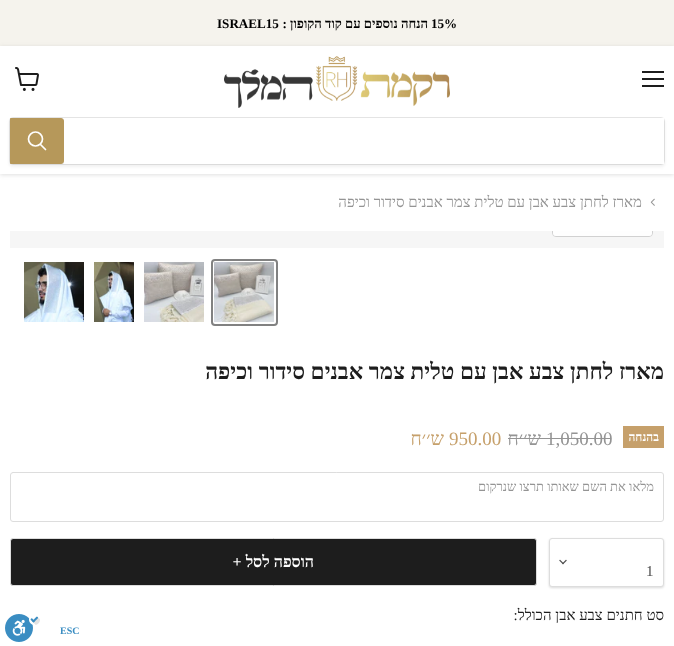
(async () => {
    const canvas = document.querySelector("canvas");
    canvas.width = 674;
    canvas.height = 646;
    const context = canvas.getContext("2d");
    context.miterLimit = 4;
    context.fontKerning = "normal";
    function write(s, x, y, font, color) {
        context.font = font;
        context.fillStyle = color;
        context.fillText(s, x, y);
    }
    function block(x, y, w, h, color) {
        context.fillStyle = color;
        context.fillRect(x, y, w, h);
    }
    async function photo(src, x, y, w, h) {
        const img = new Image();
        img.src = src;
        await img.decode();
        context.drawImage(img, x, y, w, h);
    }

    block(0, 0, 674, 646, "rgb(255, 255, 255)");
    block(0, 0, 674, 46, "rgb(245, 243, 237)");
    write("15%", 431, 28, "bold 13.1px Liberation Serif", "rgb(0, 0, 0)");
    context.direction = "rtl";
    write("הנחה נוספים עם קוד הקופון :", 428, 28, "bold 13.1px Liberation Serif", "rgb(0, 0, 0)");
    context.direction = "ltr";
    write("ISRAEL15", 217, 28, "bold 13.1px Liberation Serif", "rgb(0, 0, 0)");
    context.fillStyle = "rgba(128, 128, 128, 0.25)";
    context.filter = "blur(2px)";
    context.beginPath();
    context.rect(0, 47, 674, 128);
    context.fill();
    context.filter = "none";
    block(0, 46, 674, 128, "rgb(255, 255, 255)");
    await photo("media/1.png", 224, 56, 226, 52);
    context.fillStyle = "rgba(128, 128, 128, 0.11)";
    context.filter = "blur(1.5px)";
    context.beginPath();
    context.roundRect(9, 119, 656, 48, 4);
    context.fill();
    context.filter = "none";
    context.beginPath();
    context.roundRect(9.5, 117.5, 655, 47, 3.5);
    context.strokeStyle = "rgba(128, 128, 128, 0.2)";
    context.stroke();
    block(64, 118, 600, 46, "rgb(255, 255, 255)");
    context.fillStyle = "rgb(182, 152, 90)";
    context.beginPath();
    context.roundRect(10.5, 118.5, 53, 45, [0, 2.5, 2.5, 0]);
    context.fill();
    context.strokeStyle = "rgb(182, 152, 90)";
    context.stroke();
    context.beginPath();
    context.moveTo(45.5, 149.5);
    context.lineTo(40.5, 144.5);
    context.strokeStyle = "rgb(255, 255, 255)";
    context.lineWidth = 1.7;
    context.lineCap = "round";
    context.stroke();
    context.beginPath();
    context.arc(35.5, 139, 7, 0, Math.PI * 2);
    context.stroke();
    block(642, 71, 22, 2, "rgb(29, 29, 29)");
    block(642, 78, 22, 2, "rgb(29, 29, 29)");
    block(642, 85, 22, 2, "rgb(29, 29, 29)");
    await photo("media/2.png", 15, 67, 24, 24);
    await photo("media/3.png", 650, 198, 5, 8);
    context.direction = "rtl";
    write("מארז לחתן צבע אבן עם טלית צמר אבנים סידור וכיפה", 642, 207, "15px Liberation Serif", "rgb(148, 148, 148)");
    block(10, 231, 654, 17, "rgb(246, 246, 246)");
    context.save();
    context.beginPath();
    context.rect(10, 231, 654, 17);
    context.clip();
    context.beginPath();
    context.roundRect(552.5, 208.5, 100, 28, 3.5);
    context.strokeStyle = "rgb(209, 209, 209)";
    context.lineWidth = 1;
    context.stroke();
    context.restore();
    context.fillStyle = "rgba(255, 255, 255, 0.9)";
    context.beginPath();
    context.roundRect(553, 231, 99, 5, [0, 0, 3, 3]);
    context.fill();
    context.beginPath();
    context.roundRect(212, 260, 65, 65, 3);
    context.strokeStyle = "rgb(129, 129, 129)";
    context.lineWidth = 2;
    context.stroke();
    await photo("media/4.png", 214, 262, 60, 60);
    await photo("media/5.png", 144, 262, 60, 60);
    await photo("media/6.png", 94, 262, 40, 60);
    await photo("media/7.png", 24, 262, 60, 60);
    write("מארז לחתן צבע אבן עם טלית צמר אבנים סידור וכיפה", 664, 379, "bold 22.5px Liberation Serif", "rgb(29, 29, 29)");
    block(623, 426, 41, 22, "rgb(198, 160, 107)");
    write("בהנחה", 659, 441, "bold 12px Liberation Serif", "rgb(255, 255, 255)");
    context.direction = "ltr";
    write("1,050.00", 546, 445, "19px Liberation Serif", "rgb(148, 148, 148)");
    block(546, 438, 65, 1, "rgb(148, 148, 148)");
    context.direction = "rtl";
    write("ש׳׳ח", 541, 445, "19px Liberation Serif", "rgb(148, 148, 148)");
    block(508, 438, 38, 1, "rgb(148, 148, 148)");
    context.direction = "ltr";
    write("950.00", 449, 445, "19px Liberation Serif", "rgb(198, 160, 107)");
    context.direction = "rtl";
    write("ש׳׳ח", 444, 445, "19px Liberation Serif", "rgb(198, 160, 107)");
    context.beginPath();
    context.roundRect(10.5, 472.5, 653, 49, 2.5);
    context.strokeStyle = "rgb(221, 221, 221)";
    context.lineWidth = 1;
    context.stroke();
    write("מלאו את השם שאותו תרצו שנרקום", 654, 491, "13px Liberation Serif", "rgb(148, 148, 148)");
    context.fillStyle = "rgb(29, 29, 29)";
    context.beginPath();
    context.roundRect(10.5, 538.5, 526, 47, 2.5);
    context.fill();
    context.stroke();
    write("הוספה לסל +", 314, 567, "bold 16px Liberation Serif", "rgb(255, 255, 255)");
    context.fillStyle = "rgba(0, 0, 0, 0.15)";
    context.filter = "blur(1px)";
    context.beginPath();
    context.roundRect(549, 539, 115, 49, 3);
    context.fill();
    context.filter = "none";
    context.fillStyle = "rgb(255, 255, 255)";
    context.beginPath();
    context.roundRect(549.5, 538.5, 114, 48, 2.5);
    context.fill();
    context.stroke();
    await photo("media/8.png", 559, 559, 8, 6);
    context.direction = "ltr";
    write("1", 646, 576, "15px Liberation Serif", "rgb(77, 77, 77)");
    context.direction = "rtl";
    write("סט חתנים צבע אבן הכולל:", 664, 620, "15px Liberation Serif", "rgb(29, 29, 29)");
    context.direction = "ltr";
    write("ESC", 60, 634, "bold 10px Liberation Serif", "rgb(58, 141, 194)");
    await photo("media/9.png", 5, 614, 35, 28);
})();
